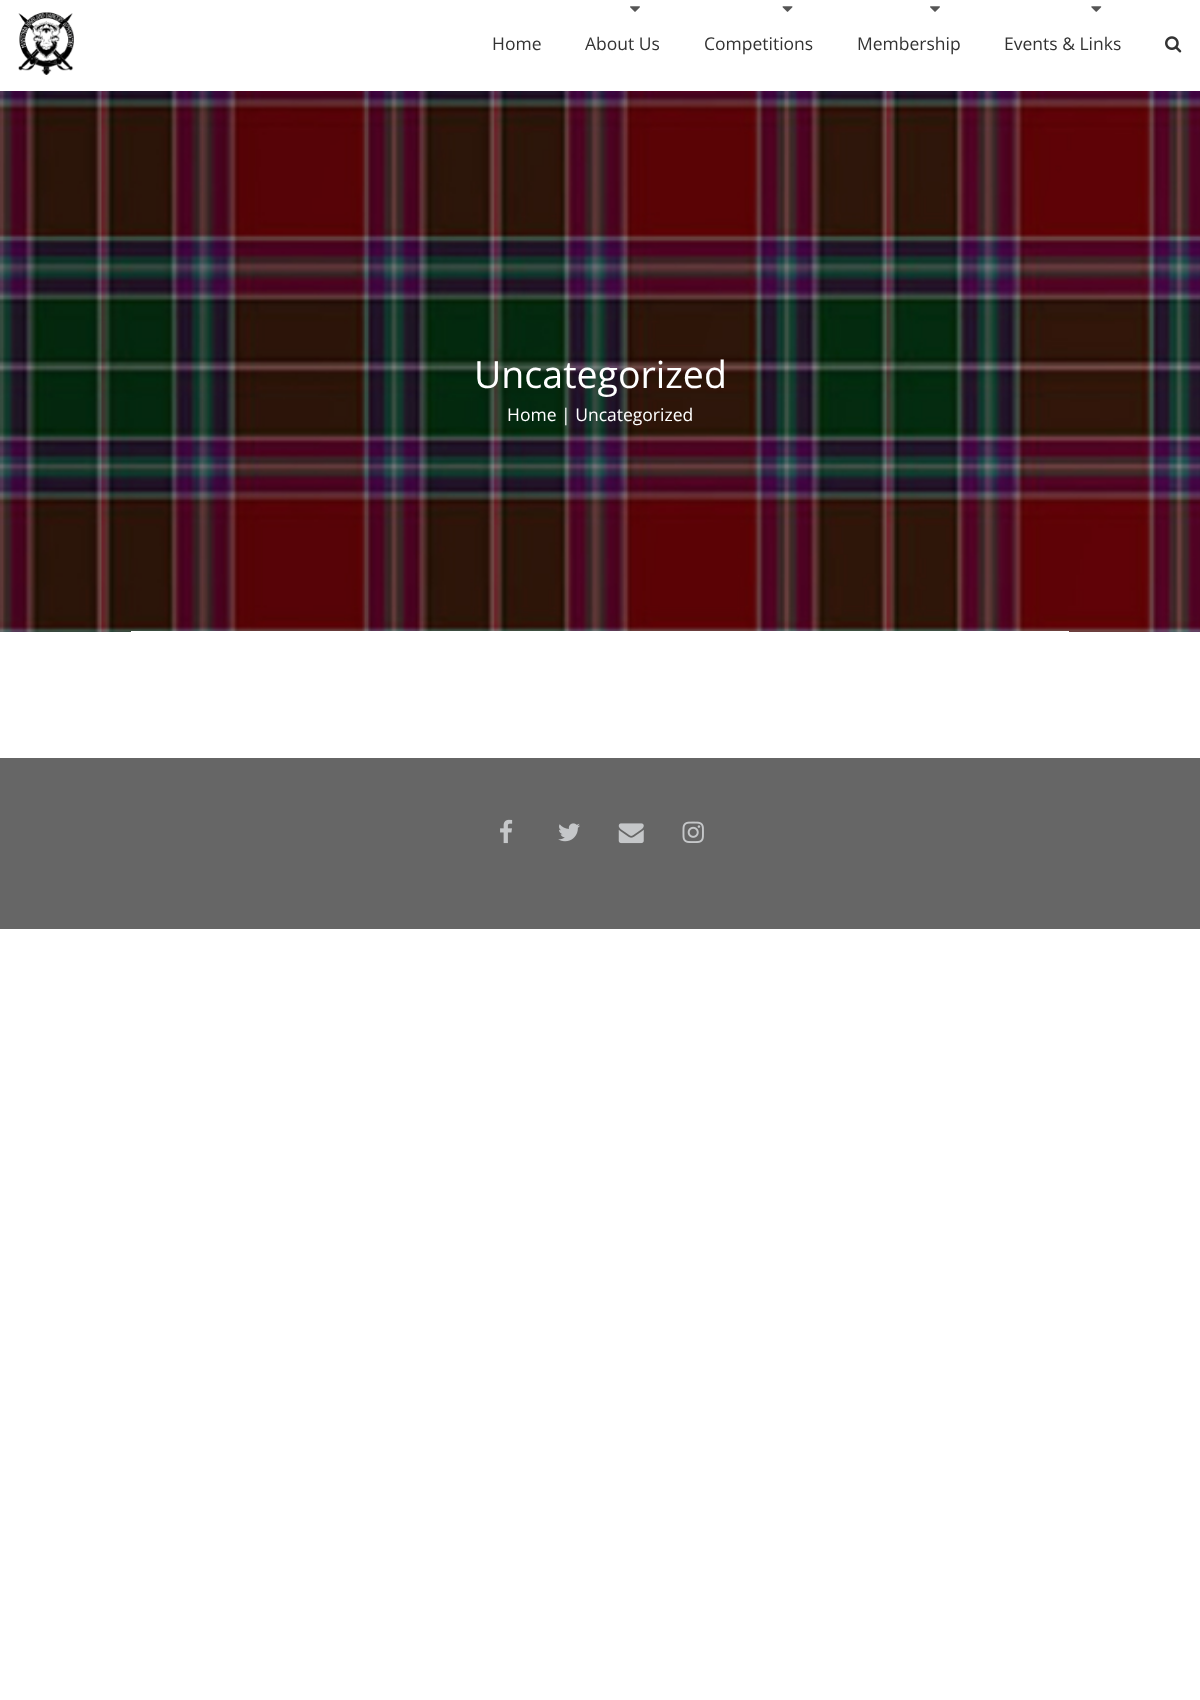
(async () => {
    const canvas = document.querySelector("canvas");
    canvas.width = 1200;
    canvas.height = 1700;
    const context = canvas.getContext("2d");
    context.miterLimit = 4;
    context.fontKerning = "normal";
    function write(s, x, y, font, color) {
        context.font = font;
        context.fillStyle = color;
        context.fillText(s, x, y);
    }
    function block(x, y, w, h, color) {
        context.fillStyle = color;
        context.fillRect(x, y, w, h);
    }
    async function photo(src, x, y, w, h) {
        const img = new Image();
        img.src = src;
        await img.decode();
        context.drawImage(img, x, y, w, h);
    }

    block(0, 0, 1200, 1700, "rgb(255, 255, 255)");
    await photo("media/1.png", 18, 12, 56, 63);
    write("Home", 492, 50, "17.5px Open Sans", "rgb(51, 51, 51)");
    await photo("media/2.png", 630, 6, 10, 6);
    write("About Us", 585, 50, "17.5px Open Sans", "rgb(51, 51, 51)");
    await photo("media/3.png", 782, 6, 11, 6);
    write("Competitions", 704, 50, "17.5px Open Sans", "rgb(51, 51, 51)");
    await photo("media/2.png", 930, 6, 10, 6);
    write("Membership", 857, 50, "17.5px Open Sans", "rgb(51, 51, 51)");
    await photo("media/4.png", 1091, 6, 11, 6);
    write("Events & Links", 1004, 50, "17.5px Open Sans", "rgb(51, 51, 51)");
    await photo("media/5.png", 1165, 36, 17, 17);
    await photo("media/6.png", 0, 91, 1200, 541);
    write("Uncategorized", 474, 388, "37.5px Open Sans", "rgb(255, 255, 255)");
    write("Home | Uncategorized", 507, 421, "17.5px Open Sans", "rgb(255, 255, 255)");
    block(131, 631, 938, 1, "rgb(255, 255, 255)");
    block(0, 758, 1200, 171, "rgb(102, 102, 102)");
    await photo("media/7.png", 500, 819, 13, 25);
    await photo("media/8.png", 558, 823, 22, 19);
    await photo("media/9.png", 618, 823, 26, 21);
    await photo("media/10.png", 682, 821, 22, 22);
})();
